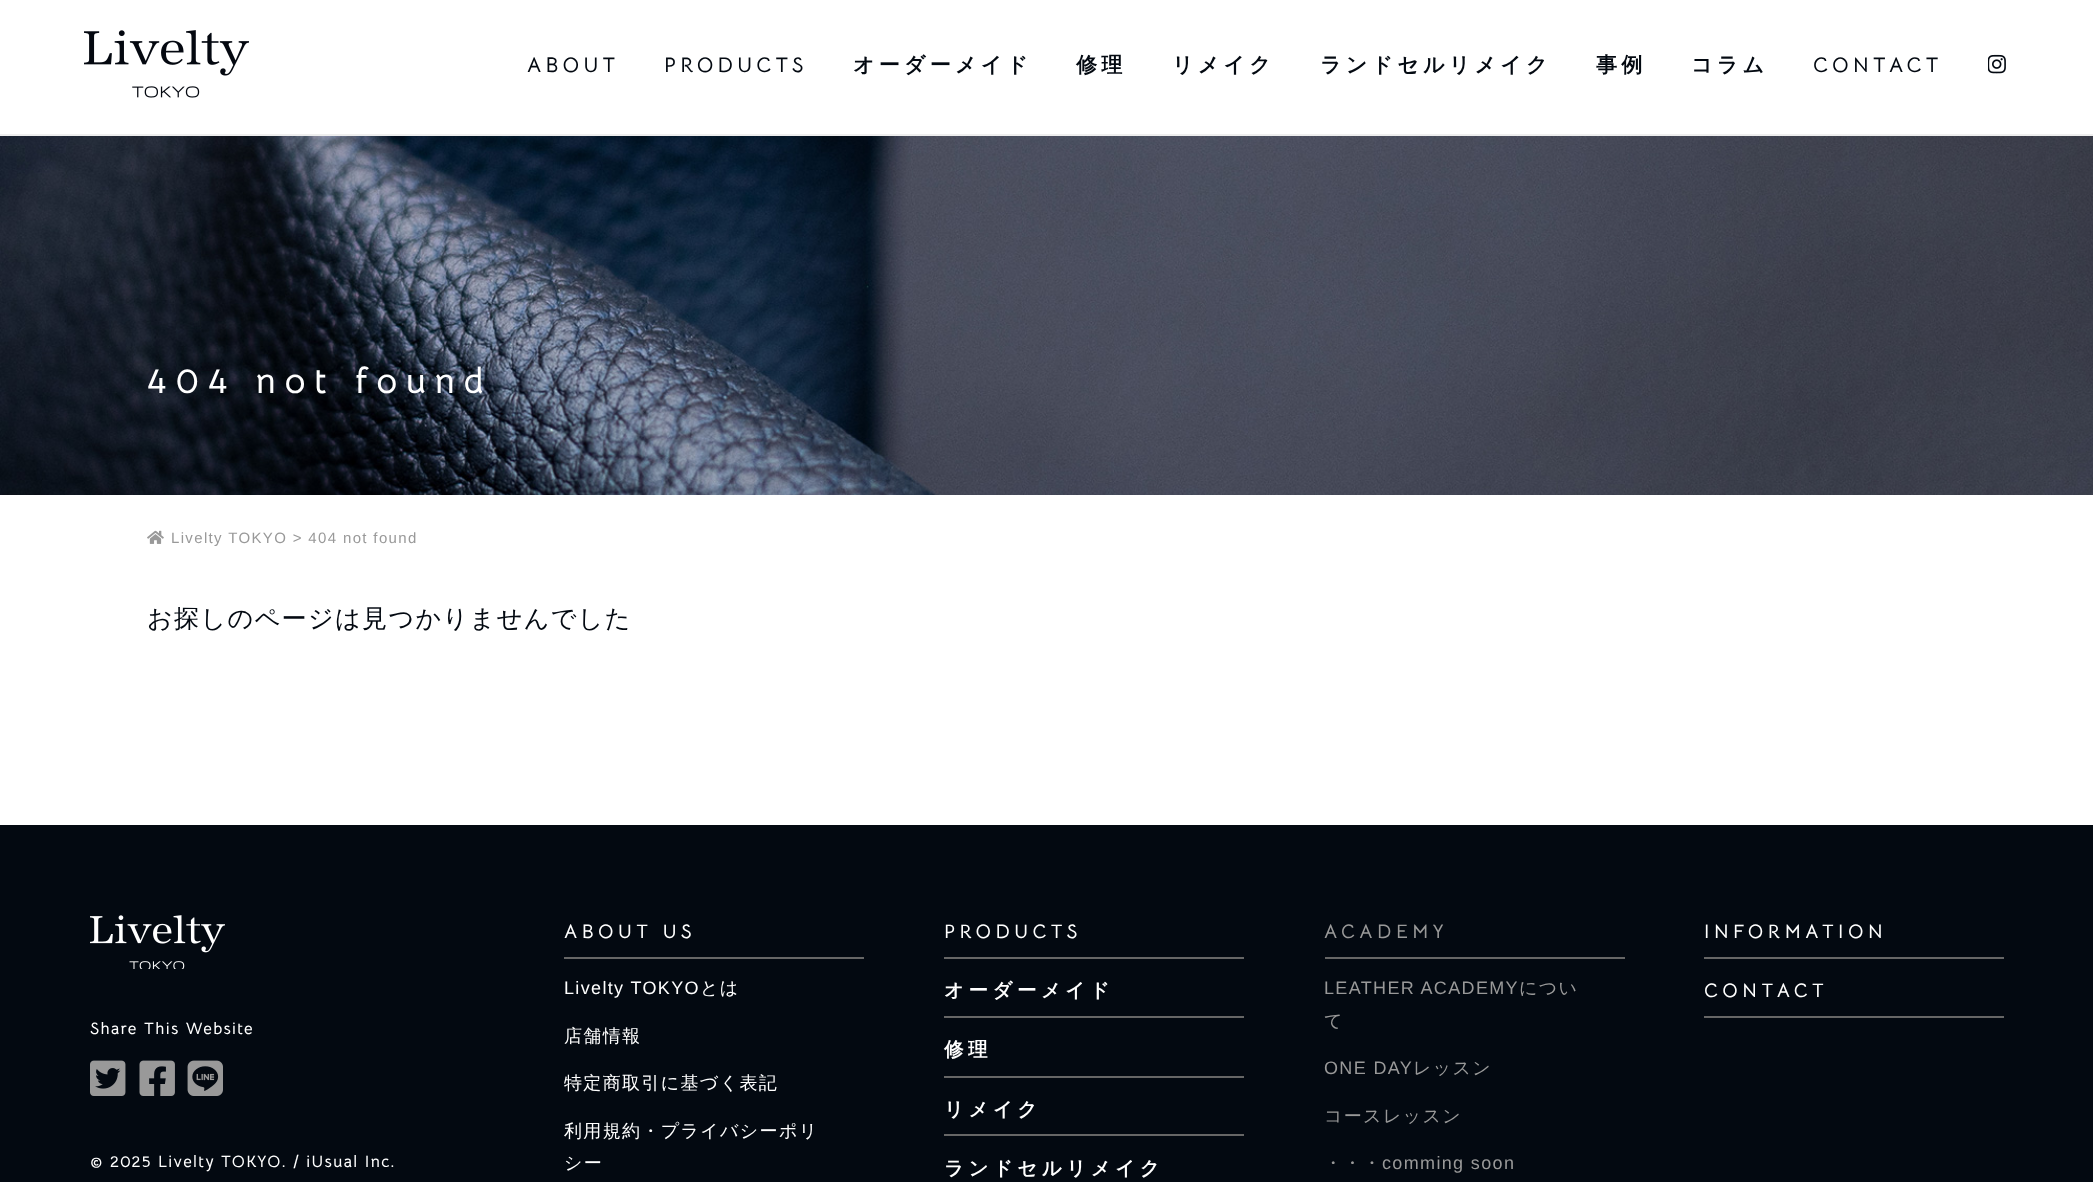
(async () => {
    const canvas = document.querySelector("canvas");
    canvas.width = 2093;
    canvas.height = 1182;
    const context = canvas.getContext("2d");
    context.miterLimit = 4;
    context.fontKerning = "normal";
    function write(s, x, y, font, color) {
        context.font = font;
        context.fillStyle = color;
        context.fillText(s, x, y);
    }
    function block(x, y, w, h, color) {
        context.fillStyle = color;
        context.fillRect(x, y, w, h);
    }
    async function photo(src, x, y, w, h) {
        const img = new Image();
        img.src = src;
        await img.decode();
        context.drawImage(img, x, y, w, h);
    }

    block(0, 0, 2093, 1182, "rgb(255, 255, 255)");
    block(0, 134, 2093, 2, "rgb(238, 238, 238)");
    await photo("media/1.png", 84, 30, 165, 68);
    context.letterSpacing = "4.25px";
    write("ABOUT", 527, 72, "bold 21px Bellota Text", "rgb(3, 9, 17)");
    write("PRODUCTS", 664, 72, "bold 21px Bellota Text", "rgb(3, 9, 17)");
    write("オーダーメイド", 853, 72, "bold 21px WenQuanYi Zen Hei", "rgb(3, 9, 17)");
    write("修理", 1076, 72, "bold 21px WenQuanYi Zen Hei", "rgb(3, 9, 17)");
    write("リメイク", 1172, 72, "bold 21px WenQuanYi Zen Hei", "rgb(3, 9, 17)");
    write("ランドセルリメイク", 1320, 72, "bold 21px WenQuanYi Zen Hei", "rgb(3, 9, 17)");
    write("事例", 1596, 72, "bold 21px WenQuanYi Zen Hei", "rgb(3, 9, 17)");
    write("コラム", 1691, 72, "bold 21px WenQuanYi Zen Hei", "rgb(3, 9, 17)");
    write("CONTACT", 1813, 72, "bold 21px Bellota Text", "rgb(3, 9, 17)");
    await photo("media/2.png", 1988, 54, 18, 20);
    await photo("media/3.png", 0, 136, 2093, 359);
    context.letterSpacing = "9px";
    write("404 not found", 147, 393, "bold 36px Bellota Text", "rgb(255, 255, 255)");
    await photo("media/4.png", 147, 530, 17, 14);
    context.letterSpacing = "1.35px";
    write("Livelty TOKYO > 404 not found", 171, 543, "15px Liberation Sans", "rgb(153, 153, 153)");
    write("お探しのページは見つかりませんでした", 147, 627, "500 25.1px WenQuanYi Zen Hei", "rgb(3, 9, 17)");
    block(0, 825, 2093, 357, "rgb(3, 9, 17)");
    await photo("media/5.png", 90, 915, 135, 54);
    write("Share This Website", 90, 1034, "bold 16.5px Bellota Text", "rgb(255, 255, 255)");
    await photo("media/6.png", 90, 1060, 36, 36);
    await photo("media/7.png", 139, 1060, 36, 36);
    await photo("media/8.png", 187, 1060, 36, 36);
    write("© 2025 Livelty TOKYO. / iUsual Inc.", 90, 1167, "bold 16.5px Bellota Text", "rgb(255, 255, 255)");
    block(564, 957, 300, 2, "rgb(102, 102, 102)");
    context.letterSpacing = "4.5px";
    write("ABOUT US", 564, 938, "bold 19.5px Bellota Text", "rgb(255, 255, 255)");
    context.letterSpacing = "1.35px";
    write("Livelty TOKYO", 564, 994, "18px Liberation Sans", "rgb(255, 255, 255)");
    write("とは", 700, 994, "500 18px WenQuanYi Zen Hei", "rgb(255, 255, 255)");
    write("店舗情報", 564, 1042, "500 18px WenQuanYi Zen Hei", "rgb(255, 255, 255)");
    write("特定商取引に基づく表記", 564, 1089, "500 18px WenQuanYi Zen Hei", "rgb(255, 255, 255)");
    write("利用規約・プライバシーポリ", 564, 1137, "500 18px WenQuanYi Zen Hei", "rgb(255, 255, 255)");
    write("シー", 564, 1169, "500 18px WenQuanYi Zen Hei", "rgb(255, 255, 255)");
    block(944, 957, 300, 2, "rgb(102, 102, 102)");
    context.letterSpacing = "4.5px";
    write("PRODUCTS", 944, 938, "bold 19.5px Bellota Text", "rgb(255, 255, 255)");
    block(944, 1016, 300, 2, "rgb(102, 102, 102)");
    write("オーダーメイド", 944, 997, "bold 19.5px WenQuanYi Zen Hei", "rgb(255, 255, 255)");
    block(944, 1076, 300, 2, "rgb(102, 102, 102)");
    write("修理", 944, 1056, "bold 19.5px WenQuanYi Zen Hei", "rgb(255, 255, 255)");
    block(944, 1134, 300, 2, "rgb(102, 102, 102)");
    write("リメイク", 944, 1116, "bold 19.5px WenQuanYi Zen Hei", "rgb(255, 255, 255)");
    write("ランドセルリメイク", 944, 1175, "bold 19.5px WenQuanYi Zen Hei", "rgb(255, 255, 255)");
    block(1325, 957, 300, 2, "rgb(102, 102, 102)");
    write("ACADEMY", 1324, 938, "bold 19.5px Bellota Text", "rgb(153, 153, 153)");
    context.letterSpacing = "1.35px";
    write("LEATHER ACADEMY", 1324, 994, "18px Liberation Sans", "rgb(153, 153, 153)");
    write("につい", 1519, 994, "500 18px WenQuanYi Zen Hei", "rgb(153, 153, 153)");
    write("て", 1324, 1027, "500 18px WenQuanYi Zen Hei", "rgb(153, 153, 153)");
    write("ONE DAY", 1324, 1074, "18px Liberation Sans", "rgb(153, 153, 153)");
    write("レッスン", 1413, 1074, "500 18px WenQuanYi Zen Hei", "rgb(153, 153, 153)");
    write("コースレッスン", 1324, 1122, "500 18px WenQuanYi Zen Hei", "rgb(153, 153, 153)");
    write("・・・", 1324, 1169, "500 18px WenQuanYi Zen Hei", "rgb(153, 153, 153)");
    write("comming soon", 1382, 1169, "18px Liberation Sans", "rgb(153, 153, 153)");
    block(1704, 957, 300, 2, "rgb(102, 102, 102)");
    context.letterSpacing = "4.5px";
    write("INFORMATION", 1704, 938, "bold 19.5px Bellota Text", "rgb(255, 255, 255)");
    block(1704, 1016, 300, 2, "rgb(102, 102, 102)");
    write("CONTACT", 1704, 997, "bold 19.5px Bellota Text", "rgb(255, 255, 255)");
})();
